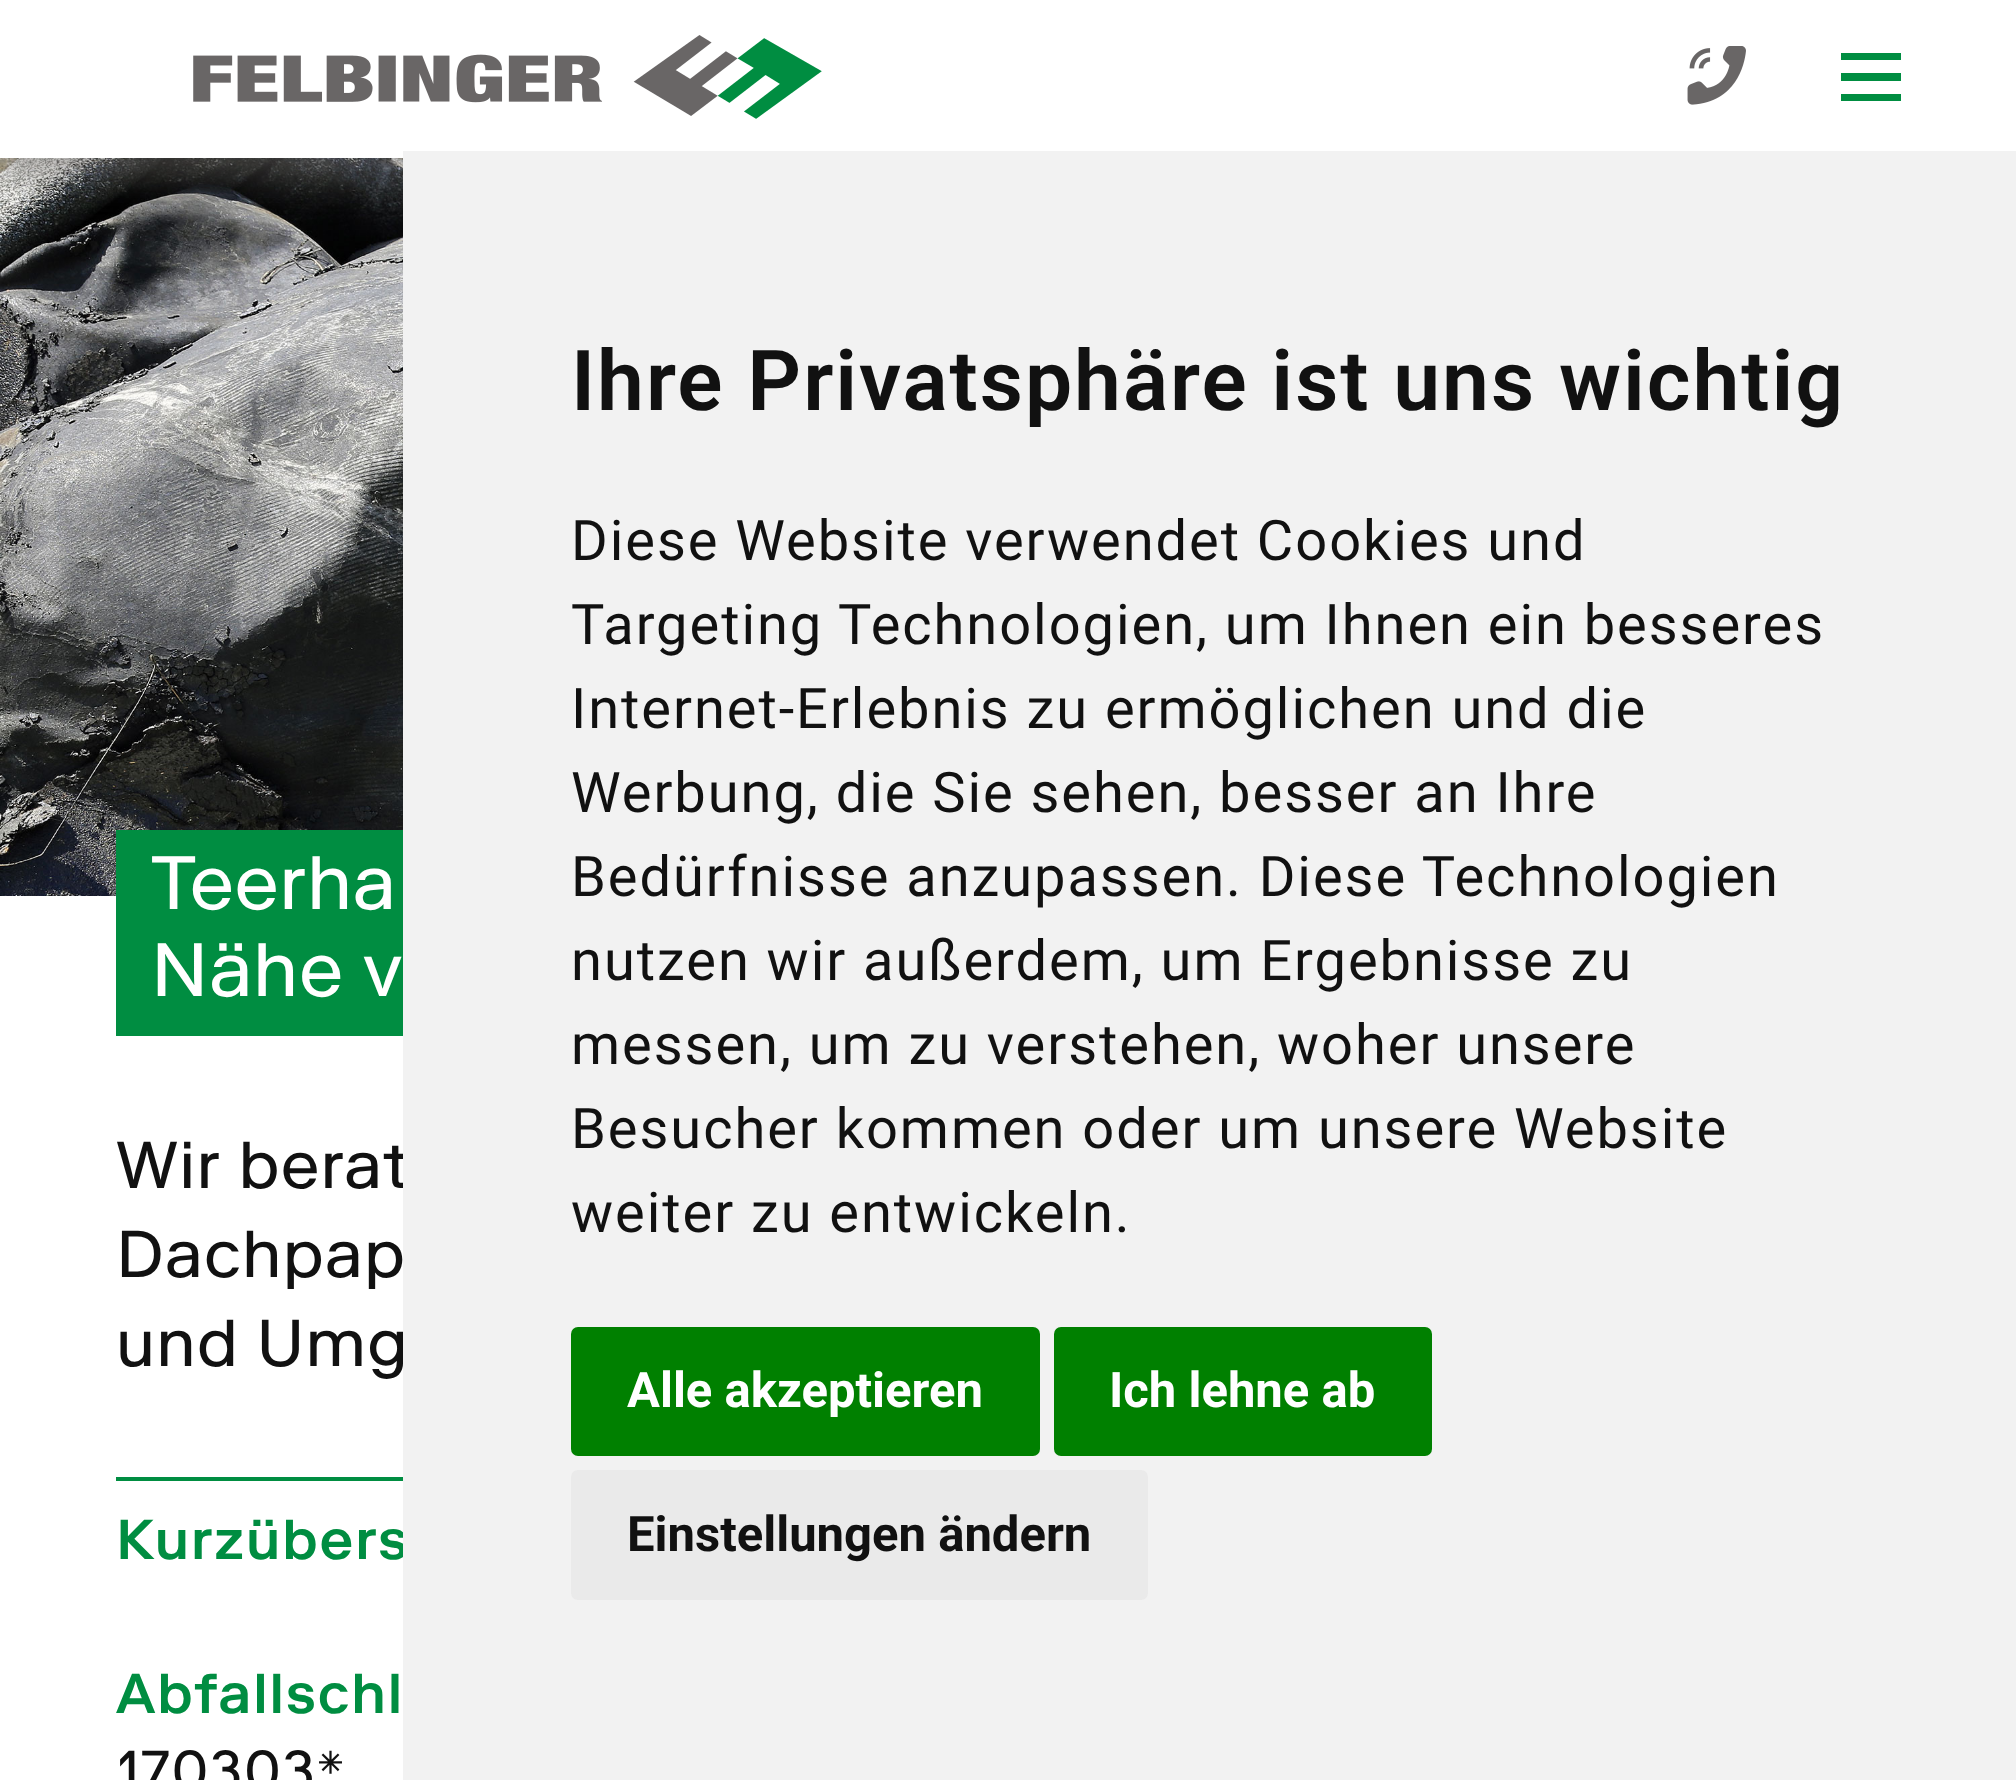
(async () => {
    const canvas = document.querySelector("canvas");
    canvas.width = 2016;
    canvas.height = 1780;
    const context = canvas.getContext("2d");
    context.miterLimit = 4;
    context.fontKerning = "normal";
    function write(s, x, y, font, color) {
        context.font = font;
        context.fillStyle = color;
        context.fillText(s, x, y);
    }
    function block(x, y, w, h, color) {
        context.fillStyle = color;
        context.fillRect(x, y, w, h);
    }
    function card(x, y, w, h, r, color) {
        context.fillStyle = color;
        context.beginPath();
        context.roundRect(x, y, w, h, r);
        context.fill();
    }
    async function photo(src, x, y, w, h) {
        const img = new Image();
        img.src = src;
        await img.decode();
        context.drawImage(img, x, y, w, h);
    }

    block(0, 0, 2016, 1780, "rgb(255, 255, 255)");
    await photo("media/3.png", 0, 158, 403, 738);
    context.fillStyle = "rgba(105, 102, 102, 0.5)";
    context.filter = "blur(17.5px)";
    context.beginPath();
    context.rect(0, 18, 2016, 157);
    context.fill();
    context.filter = "none";
    block(0, 0, 2016, 158, "rgb(255, 255, 255)");
    await photo("media/1.png", 193, 35, 629, 84);
    await photo("media/2.png", 1687, 46, 59, 59);
    block(1841, 53, 60, 7, "rgb(0, 141, 65)");
    block(1841, 73, 60, 8, "rgb(0, 141, 65)");
    block(1841, 94, 60, 7, "rgb(0, 141, 65)");
    context.letterSpacing = "1.25px";
    write("Wir berat", 116, 1188, "66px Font", "rgb(17, 17, 17)");
    write("und Umg", 116, 1366, "66px Font", "rgb(17, 17, 17)");
    context.letterSpacing = "1.95px";
    write("Kurzübers", 116, 1559, "500 56px Font", "rgb(0, 141, 65)");
    block(403, 151, 1613, 1629, "rgb(242, 242, 242)");
    write("Ihre Privatsphäre ist uns wichtig", 571, 410, "600 84px Roboto", "rgb(17, 17, 17)");
    write("Diese Website verwendet Cookies und", 571, 560, "56px Roboto", "rgb(17, 17, 17)");
    write("Targeting Technologien, um Ihnen ein besseres", 571, 644, "56px Roboto", "rgb(17, 17, 17)");
    write("Internet-Erlebnis zu ermöglichen und die", 571, 728, "56px Roboto", "rgb(17, 17, 17)");
    write("Werbung, die Sie sehen, besser an Ihre", 571, 812, "56px Roboto", "rgb(17, 17, 17)");
    write("Bedürfnisse anzupassen. Diese Technologien", 571, 896, "56px Roboto", "rgb(17, 17, 17)");
    write("nutzen wir außerdem, um Ergebnisse zu", 571, 980, "56px Roboto", "rgb(17, 17, 17)");
    write("messen, um zu verstehen, woher unsere", 571, 1064, "56px Roboto", "rgb(17, 17, 17)");
    write("Besucher kommen oder um unsere Website", 571, 1148, "56px Roboto", "rgb(17, 17, 17)");
    write("weiter zu entwickeln.", 571, 1232, "56px Roboto", "rgb(17, 17, 17)");
    card(571, 1327, 469, 129, 7, "rgb(0, 128, 0)");
    context.letterSpacing = "0px";
    write("Alle akzeptieren", 627, 1407, "bold 49px Roboto", "rgb(255, 255, 255)");
    card(1054, 1327, 378, 129, 7, "rgb(0, 128, 0)");
    write("Ich lehne ab", 1109, 1407, "bold 49px Roboto", "rgb(255, 255, 255)");
    card(571, 1470, 577, 130, 7, "rgb(234, 234, 234)");
    write("Einstellungen ändern", 627, 1551, "bold 49px Roboto", "rgb(17, 17, 17)");
    block(116, 830, 287, 206, "rgb(0, 141, 65)");
    context.letterSpacing = "0.75px";
    write("Teerha", 151, 909, "75.5px Font", "rgb(255, 255, 255)");
    write("Nähe v", 151, 996, "75.5px Font", "rgb(255, 255, 255)");
    context.letterSpacing = "1.25px";
    write("Dachpap", 116, 1277, "66px Font", "rgb(17, 17, 17)");
    block(116, 1477, 287, 4, "rgb(0, 141, 65)");
    context.letterSpacing = "1.95px";
    write("Abfallschl", 116, 1713, "500 56px Font", "rgb(0, 141, 65)");
    write("170303*", 116, 1790, "56px Font", "rgb(17, 17, 17)");
})();
